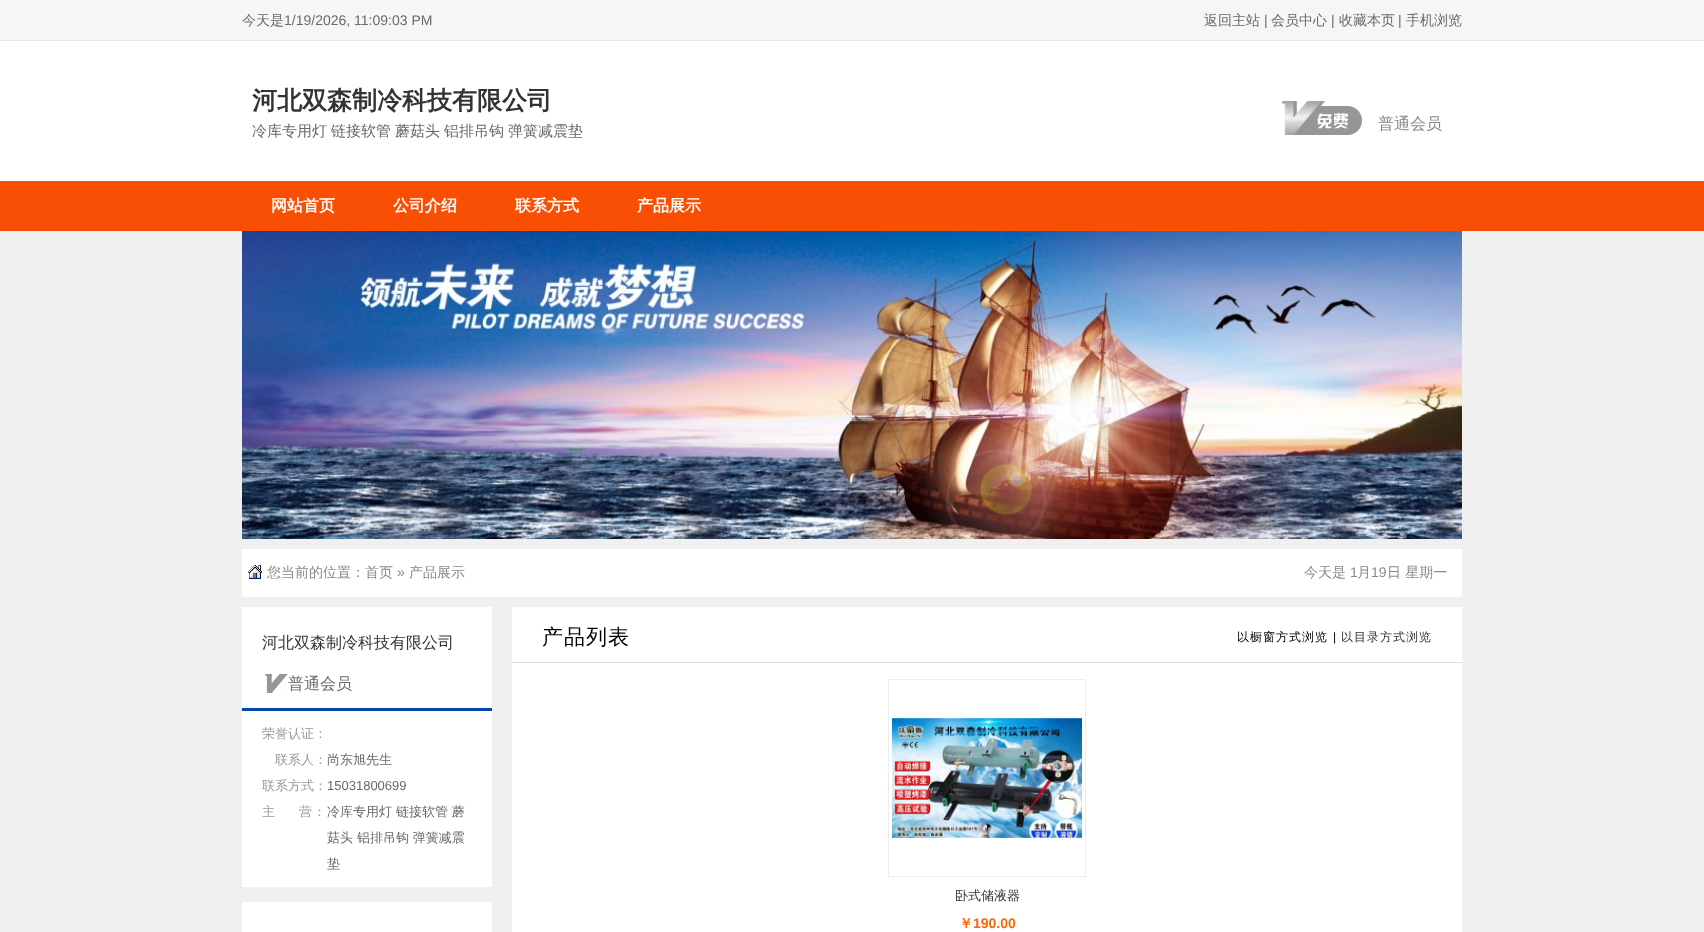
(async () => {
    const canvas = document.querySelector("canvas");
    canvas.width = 1704;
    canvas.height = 932;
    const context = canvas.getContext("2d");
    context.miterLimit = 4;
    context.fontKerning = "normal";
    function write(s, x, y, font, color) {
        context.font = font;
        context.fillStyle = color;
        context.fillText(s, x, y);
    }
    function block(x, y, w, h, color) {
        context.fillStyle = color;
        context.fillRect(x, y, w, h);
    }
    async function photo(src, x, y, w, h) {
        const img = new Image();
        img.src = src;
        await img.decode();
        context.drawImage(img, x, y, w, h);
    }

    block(0, 0, 1704, 932, "rgb(240, 240, 240)");
    block(0, 0, 1704, 40, "rgb(246, 246, 246)");
    block(0, 40, 1704, 1, "rgb(230, 230, 230)");
    write("今天是", 242, 25, "500 14px WenQuanYi Zen Hei", "rgb(105, 105, 105)");
    write("1/19/2026, 11:09:03 PM", 284, 25, "14px Liberation Sans", "rgb(105, 105, 105)");
    write("返回主站", 1204, 25, "500 14px WenQuanYi Zen Hei", "rgb(105, 105, 105)");
    write("|", 1264, 25, "14px Liberation Sans", "rgb(105, 105, 105)");
    write("会员中心", 1271, 25, "500 14px WenQuanYi Zen Hei", "rgb(105, 105, 105)");
    write("|", 1331, 25, "14px Liberation Sans", "rgb(105, 105, 105)");
    write("收藏本页", 1339, 25, "500 14px WenQuanYi Zen Hei", "rgb(105, 105, 105)");
    write("|", 1398, 25, "14px Liberation Sans", "rgb(105, 105, 105)");
    write("手机浏览", 1406, 25, "500 14px WenQuanYi Zen Hei", "rgb(105, 105, 105)");
    block(0, 41, 1704, 140, "rgb(255, 255, 255)");
    write("河北双森制冷科技有限公司", 252, 109, "bold 25px WenQuanYi Zen Hei", "rgb(51, 51, 51)");
    context.wordSpacing = "-0.5px";
    write("冷库专用灯 链接软管 蘑菇头 铝排吊钩 弹簧减震垫", 252, 136, "500 15px WenQuanYi Zen Hei", "rgb(105, 105, 105)");
    await photo("media/1.png", 1282, 101, 80, 34);
    context.wordSpacing = "0px";
    write("普通会员", 1378, 129, "500 16px WenQuanYi Zen Hei", "rgb(136, 136, 136)");
    block(0, 181, 1704, 50, "rgb(248, 79, 4)");
    write("网站首页", 271, 211, "bold 16px WenQuanYi Zen Hei", "rgb(255, 255, 255)");
    write("公司介绍", 393, 211, "bold 16px WenQuanYi Zen Hei", "rgb(255, 255, 255)");
    write("联系方式", 515, 211, "bold 16px WenQuanYi Zen Hei", "rgb(255, 255, 255)");
    write("产品展示", 637, 211, "bold 16px WenQuanYi Zen Hei", "rgb(255, 255, 255)");
    await photo("media/2.png", 242, 231, 1220, 308);
    block(242, 549, 1220, 48, "rgb(255, 255, 255)");
    await photo("media/3.png", 248, 565, 14, 14);
    write("您当前的位置：首页", 267, 577, "500 14px WenQuanYi Zen Hei", "rgb(136, 136, 136)");
    write("»", 397, 577, "14px Liberation Sans", "rgb(136, 136, 136)");
    write("产品展示", 409, 577, "500 14px WenQuanYi Zen Hei", "rgb(136, 136, 136)");
    write("今天是", 1304, 577, "500 14px WenQuanYi Zen Hei", "rgb(136, 136, 136)");
    write("1", 1350, 577, "14px Liberation Sans", "rgb(136, 136, 136)");
    write("月", 1357, 577, "500 14px WenQuanYi Zen Hei", "rgb(136, 136, 136)");
    write("19", 1371, 577, "14px Liberation Sans", "rgb(136, 136, 136)");
    write("日 星期一", 1387, 577, "500 14px WenQuanYi Zen Hei", "rgb(136, 136, 136)");
    block(242, 607, 250, 280, "rgb(255, 255, 255)");
    block(242, 708, 250, 3, "rgb(0, 73, 172)");
    write("河北双森制冷科技有限公司", 262, 648, "500 16px WenQuanYi Zen Hei", "rgb(51, 51, 51)");
    await photo("media/4.png", 265, 674, 23, 19);
    write("普通会员", 288, 689, "500 16px WenQuanYi Zen Hei", "rgb(105, 105, 105)");
    write("荣誉认证：", 262, 738, "500 13px WenQuanYi Zen Hei", "rgb(153, 153, 153)");
    write("联系人：", 275, 764, "500 13px WenQuanYi Zen Hei", "rgb(153, 153, 153)");
    write("尚东旭先生", 327, 764, "500 13px WenQuanYi Zen Hei", "rgb(105, 105, 105)");
    write("联系方式：", 262, 790, "500 13px WenQuanYi Zen Hei", "rgb(153, 153, 153)");
    write("15031800699", 327, 790, "13px Liberation Sans", "rgb(105, 105, 105)");
    context.letterSpacing = "1px";
    write("主", 262, 816, "500 13px WenQuanYi Zen Hei", "rgb(153, 153, 153)");
    write("营：", 299, 816, "500 13px WenQuanYi Zen Hei", "rgb(153, 153, 153)");
    context.letterSpacing = "0px";
    write("冷库专用灯 链接软管 蘑", 327, 816, "500 13px WenQuanYi Zen Hei", "rgb(105, 105, 105)");
    write("菇头 铝排吊钩 弹簧减震", 327, 842, "500 13px WenQuanYi Zen Hei", "rgb(105, 105, 105)");
    write("垫", 327, 868, "500 13px WenQuanYi Zen Hei", "rgb(105, 105, 105)");
    block(242, 902, 250, 30, "rgb(255, 255, 255)");
    block(512, 607, 950, 55, "rgb(255, 255, 255)");
    block(512, 662, 950, 1, "rgb(221, 221, 221)");
    context.letterSpacing = "1px";
    write("产品列表", 542, 644, "500 21px WenQuanYi Zen Hei", "rgb(0, 0, 0)");
    write("以橱窗方式浏览", 1237, 641, "500 12px WenQuanYi Zen Hei", "rgb(0, 0, 0)");
    write("|", 1333, 641, "12px Liberation Sans", "rgb(0, 0, 0)");
    write("以目录方式浏览", 1341, 641, "500 12px WenQuanYi Zen Hei", "rgb(51, 51, 51)");
    block(512, 663, 950, 269, "rgb(255, 255, 255)");
    context.strokeStyle = "rgb(237, 237, 237)";
    context.strokeRect(888.5, 679.5, 197, 197);
    await photo("media/5.png", 892, 718, 190, 120);
    context.letterSpacing = "0px";
    write("卧式储液器", 955, 900, "500 13px WenQuanYi Zen Hei", "rgb(51, 51, 51)");
    write("￥", 959, 928, "bold 14px WenQuanYi Zen Hei", "rgb(255, 102, 0)");
    write("190.00", 973, 928, "bold 14px Liberation Sans", "rgb(255, 102, 0)");
})();
